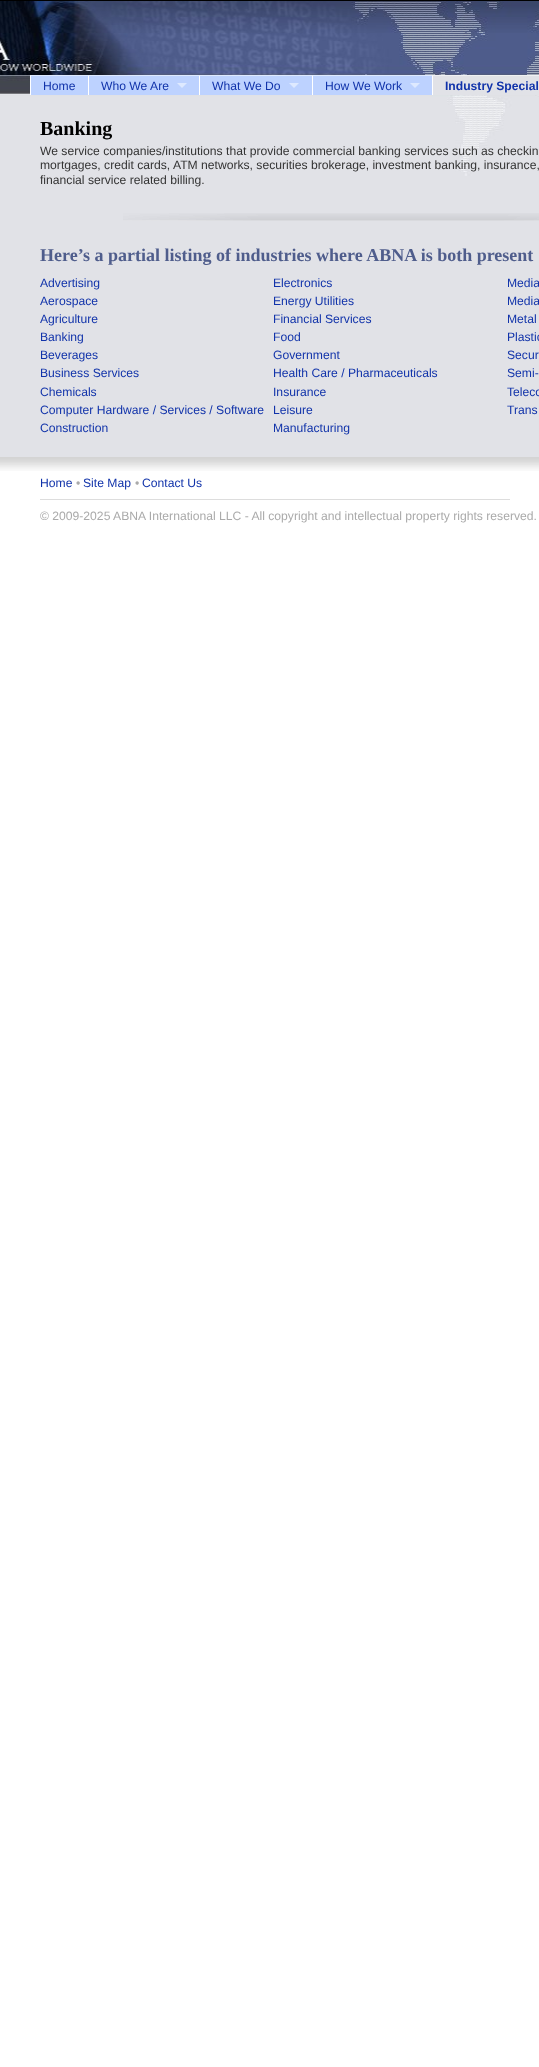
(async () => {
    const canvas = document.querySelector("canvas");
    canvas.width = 539;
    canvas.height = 2067;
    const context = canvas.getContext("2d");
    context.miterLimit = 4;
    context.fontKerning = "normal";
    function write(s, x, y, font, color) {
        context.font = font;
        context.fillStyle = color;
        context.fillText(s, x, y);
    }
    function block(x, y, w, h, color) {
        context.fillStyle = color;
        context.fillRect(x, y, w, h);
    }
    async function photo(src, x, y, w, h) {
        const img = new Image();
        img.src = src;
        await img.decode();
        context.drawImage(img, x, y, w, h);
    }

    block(0, 0, 539, 2067, "rgb(255, 255, 255)");
    block(0, 0, 539, 1, "rgb(0, 0, 0)");
    await photo("media/1.png", 0, 1, 539, 107);
    block(30, 75, 402, 20, "rgb(189, 210, 255)");
    context.fillStyle = "rgb(222, 233, 255)";
    context.beginPath();
    context.moveTo(30, 75);
    context.lineTo(88, 75);
    context.lineTo(88, 76);
    context.lineTo(31, 76);
    context.closePath();
    context.fill();
    context.fillStyle = "rgb(255, 255, 255)";
    context.beginPath();
    context.moveTo(30, 95);
    context.lineTo(30, 75);
    context.lineTo(31, 76);
    context.lineTo(31, 95);
    context.closePath();
    context.fill();
    write("Home", 43, 90, "12.15px Liberation Sans", "rgb(17, 51, 170)");
    context.fillStyle = "rgb(222, 233, 255)";
    context.beginPath();
    context.moveTo(88, 75);
    context.lineTo(199, 75);
    context.lineTo(199, 76);
    context.lineTo(89, 76);
    context.closePath();
    context.fill();
    context.fillStyle = "rgb(255, 255, 255)";
    context.beginPath();
    context.moveTo(88, 95);
    context.lineTo(88, 75);
    context.lineTo(89, 76);
    context.lineTo(89, 95);
    context.closePath();
    context.fill();
    write("Who We Are", 101, 90, "12.15px Liberation Sans", "rgb(17, 51, 170)");
    context.fillStyle = "rgb(222, 233, 255)";
    context.beginPath();
    context.moveTo(177, 83);
    context.lineTo(187, 83);
    context.lineTo(182, 88);
    context.closePath();
    context.fill();
    context.beginPath();
    context.moveTo(199, 75);
    context.lineTo(312, 75);
    context.lineTo(312, 76);
    context.lineTo(200, 76);
    context.closePath();
    context.fill();
    context.fillStyle = "rgb(255, 255, 255)";
    context.beginPath();
    context.moveTo(199, 95);
    context.lineTo(199, 75);
    context.lineTo(200, 76);
    context.lineTo(200, 95);
    context.closePath();
    context.fill();
    write("What We Do", 212, 90, "12.15px Liberation Sans", "rgb(17, 51, 170)");
    context.fillStyle = "rgb(222, 233, 255)";
    context.beginPath();
    context.moveTo(289, 83);
    context.lineTo(299, 83);
    context.lineTo(294, 88);
    context.closePath();
    context.fill();
    context.beginPath();
    context.moveTo(312, 75);
    context.lineTo(432, 75);
    context.lineTo(432, 76);
    context.lineTo(313, 76);
    context.closePath();
    context.fill();
    context.fillStyle = "rgb(255, 255, 255)";
    context.beginPath();
    context.moveTo(312, 95);
    context.lineTo(312, 75);
    context.lineTo(313, 76);
    context.lineTo(313, 95);
    context.closePath();
    context.fill();
    write("How We Work", 325, 90, "12.15px Liberation Sans", "rgb(17, 51, 170)");
    context.fillStyle = "rgb(222, 233, 255)";
    context.beginPath();
    context.moveTo(410, 83);
    context.lineTo(420, 83);
    context.lineTo(415, 88);
    context.closePath();
    context.fill();
    block(432, 75, 107, 20, "rgb(225, 226, 231)");
    context.fillStyle = "rgb(240, 241, 243)";
    context.beginPath();
    context.moveTo(432, 75);
    context.lineTo(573, 75);
    context.lineTo(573, 76);
    context.lineTo(433, 76);
    context.closePath();
    context.fill();
    context.fillStyle = "rgb(255, 255, 255)";
    context.beginPath();
    context.moveTo(432, 95);
    context.lineTo(432, 75);
    context.lineTo(433, 76);
    context.lineTo(433, 95);
    context.closePath();
    context.fill();
    write("Industry Special", 445, 90, "bold 12.15px Liberation Sans", "rgb(17, 51, 170)");
    block(0, 108, 539, 349, "rgb(225, 226, 231)");
    await photo("media/2.png", 455, 109, 50, 67);
    await photo("media/3.png", 123, 213, 416, 8);
    write("Banking", 40, 135, "bold 20px Liberation Serif", "rgb(0, 0, 0)");
    write("We service companies/institutions that provide commercial banking services such as checkin", 40, 155, "12.15px Liberation Sans", "rgb(51, 51, 51)");
    write("mortgages, credit cards, ATM networks, securities brokerage, investment banking, insurance,", 40, 169, "12.15px Liberation Sans", "rgb(51, 51, 51)");
    write("financial service related billing.", 40, 184, "12.15px Liberation Sans", "rgb(51, 51, 51)");
    write("Here’s a partial listing of industries where ABNA is both present", 40, 261, "bold 18px Liberation Serif", "rgb(79, 93, 140)");
    write("Advertising", 40, 287, "12.15px Liberation Sans", "rgb(17, 51, 170)");
    write("Aerospace", 40, 305, "12.15px Liberation Sans", "rgb(17, 51, 170)");
    write("Agriculture", 40, 323, "12.15px Liberation Sans", "rgb(17, 51, 170)");
    write("Banking", 40, 341, "12.15px Liberation Sans", "rgb(17, 51, 170)");
    write("Beverages", 40, 359, "12.15px Liberation Sans", "rgb(17, 51, 170)");
    write("Business Services", 40, 377, "12.15px Liberation Sans", "rgb(17, 51, 170)");
    write("Chemicals", 40, 396, "12.15px Liberation Sans", "rgb(17, 51, 170)");
    write("Computer Hardware / Services / Software", 40, 414, "12.15px Liberation Sans", "rgb(17, 51, 170)");
    write("Construction", 40, 432, "12.15px Liberation Sans", "rgb(17, 51, 170)");
    write("Electronics", 273, 287, "12.15px Liberation Sans", "rgb(17, 51, 170)");
    write("Energy Utilities", 273, 305, "12.15px Liberation Sans", "rgb(17, 51, 170)");
    write("Financial Services", 273, 323, "12.15px Liberation Sans", "rgb(17, 51, 170)");
    write("Food", 273, 341, "12.15px Liberation Sans", "rgb(17, 51, 170)");
    write("Government", 273, 359, "12.15px Liberation Sans", "rgb(17, 51, 170)");
    write("Health Care / Pharmaceuticals", 273, 377, "12.15px Liberation Sans", "rgb(17, 51, 170)");
    write("Insurance", 273, 396, "12.15px Liberation Sans", "rgb(17, 51, 170)");
    write("Leisure", 273, 414, "12.15px Liberation Sans", "rgb(17, 51, 170)");
    write("Manufacturing", 273, 432, "12.15px Liberation Sans", "rgb(17, 51, 170)");
    write("Media", 507, 287, "12.15px Liberation Sans", "rgb(17, 51, 170)");
    write("Media", 507, 305, "12.15px Liberation Sans", "rgb(17, 51, 170)");
    write("Metal", 507, 323, "12.15px Liberation Sans", "rgb(17, 51, 170)");
    write("Plastic", 507, 341, "12.15px Liberation Sans", "rgb(17, 51, 170)");
    write("Secur", 507, 359, "12.15px Liberation Sans", "rgb(17, 51, 170)");
    write("Semi-", 507, 377, "12.15px Liberation Sans", "rgb(17, 51, 170)");
    write("Teleco", 507, 396, "12.15px Liberation Sans", "rgb(17, 51, 170)");
    write("Trans", 507, 414, "12.15px Liberation Sans", "rgb(17, 51, 170)");
    await photo("media/4.png", 0, 457, 539, 14);
    block(40, 499, 470, 1, "rgb(221, 221, 221)");
    write("Home", 40, 487, "12.15px Liberation Sans", "rgb(17, 51, 170)");
    write("•", 76, 487, "12.15px Liberation Sans", "rgb(170, 170, 170)");
    write("Site Map", 83, 487, "12.15px Liberation Sans", "rgb(17, 51, 170)");
    write("•", 135, 487, "12.15px Liberation Sans", "rgb(170, 170, 170)");
    write("Contact Us", 142, 487, "12.15px Liberation Sans", "rgb(17, 51, 170)");
    write("© 2009-2025 ABNA International LLC - All copyright and intellectual property rights reserved.", 40, 520, "12.15px Liberation Sans", "rgb(170, 170, 170)");
})();
